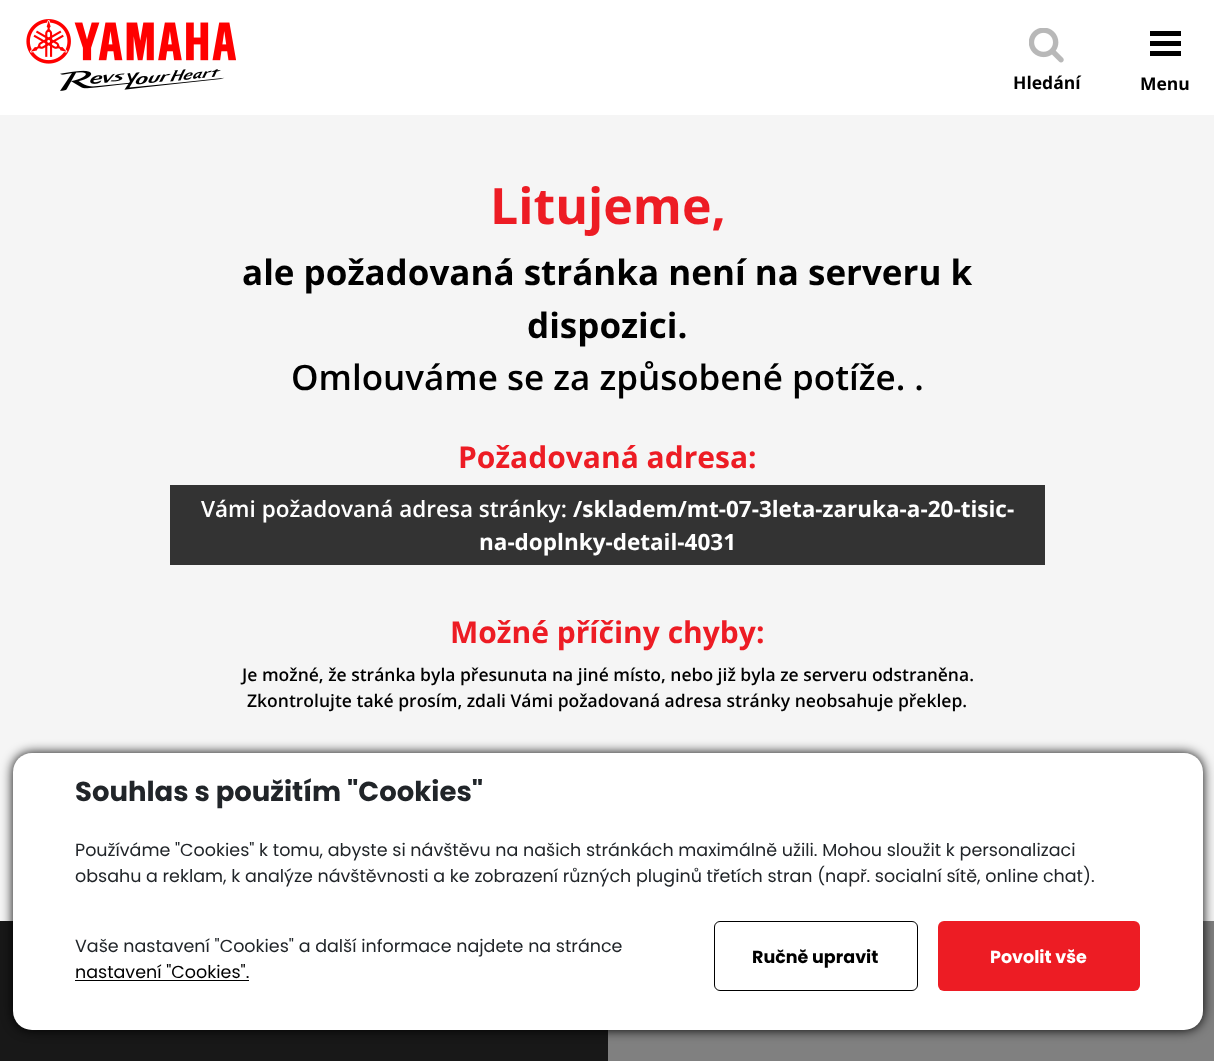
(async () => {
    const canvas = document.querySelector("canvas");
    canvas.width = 1214;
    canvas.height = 1061;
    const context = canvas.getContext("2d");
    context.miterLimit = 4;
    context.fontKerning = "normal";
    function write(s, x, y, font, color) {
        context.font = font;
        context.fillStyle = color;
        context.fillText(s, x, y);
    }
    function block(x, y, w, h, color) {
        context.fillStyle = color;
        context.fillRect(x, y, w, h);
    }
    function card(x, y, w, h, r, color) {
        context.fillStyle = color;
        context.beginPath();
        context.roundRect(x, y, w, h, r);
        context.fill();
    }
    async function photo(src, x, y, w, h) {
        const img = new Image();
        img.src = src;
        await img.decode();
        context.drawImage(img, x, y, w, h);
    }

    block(0, 0, 1214, 1061, "rgb(245, 245, 245)");
    block(0, 0, 1214, 115, "rgb(255, 255, 255)");
    await photo("media/1.png", 26, 19, 210, 72);
    await photo("media/2.png", 1029, 28, 35, 35);
    write("Hledání", 1013, 89, "bold 17.5px Open Sans", "rgb(0, 0, 0)");
    block(1150, 31, 31, 5, "rgb(0, 0, 0)");
    block(1150, 41, 31, 5, "rgb(0, 0, 0)");
    block(1150, 51, 31, 5, "rgb(0, 0, 0)");
    write("Menu", 1140, 90, "bold 17.5px Open Sans", "rgb(0, 0, 0)");
    write("Litujeme,", 490, 224, "bold 50px Open Sans", "rgb(237, 28, 36)");
    write("ale požadovaná stránka není na serveru k", 242, 285, "bold 35px Open Sans", "rgb(0, 0, 0)");
    write("dispozici.", 527, 338, "bold 35px Open Sans", "rgb(0, 0, 0)");
    write("Omlouváme se za způsobené potíže. .", 291, 390, "600 35px Open Sans", "rgb(0, 0, 0)");
    write("Požadovaná adresa:", 458, 468, "bold 30px Open Sans", "rgb(237, 28, 36)");
    block(170, 485, 875, 80, "rgb(51, 51, 51)");
    write("Vámi požadovaná adresa stránky:", 201, 517, "600 22.5px Open Sans", "rgb(255, 255, 255)");
    write("/skladem/mt-07-3leta-zaruka-a-20-tisic-", 573, 517, "bold 22.5px Open Sans", "rgb(255, 255, 255)");
    write("na-doplnky-detail-4031", 479, 550, "bold 22.5px Open Sans", "rgb(255, 255, 255)");
    write("Možné příčiny chyby:", 450, 643, "bold 30px Open Sans", "rgb(237, 28, 36)");
    write("Je možné, že stránka byla přesunuta na jiné místo, nebo již byla ze serveru odstraněna.", 242, 681, "600 17.5px Open Sans", "rgb(0, 0, 0)");
    write("Zkontrolujte také prosím, zdali Vámi požadovaná adresa stránky neobsahuje překlep.", 247, 707, "600 17.5px Open Sans", "rgb(0, 0, 0)");
    block(0, 921, 608, 140, "rgb(24, 24, 24)");
    block(608, 921, 606, 140, "rgb(128, 128, 128)");
    context.fillStyle = "rgb(0, 0, 0)";
    context.filter = "blur(6px)";
    context.beginPath();
    context.roundRect(13, 753, 1190, 277, 19);
    context.fill();
    context.filter = "none";
    card(13, 753, 1190, 277, 19, "rgb(255, 255, 255)");
    write("Souhlas s použitím \"Cookies\"", 75, 801, "bold 27.5px Poppins", "rgb(33, 37, 41)");
    write("Používáme \"Cookies\" k tomu, abyste si návštěvu na našich stránkách maximálně užili. Mohou sloužit k personalizaci", 75, 856, "17.5px Poppins", "rgb(33, 37, 41)");
    write("obsahu a reklam, k analýze návštěvnosti a ke zobrazení různých pluginů třetích stran (např. socialní sítě, online chat).", 75, 882, "17.5px Poppins", "rgb(33, 37, 41)");
    write("Vaše nastavení \"Cookies\" a další informace najdete na stránce", 75, 952, "17.5px Poppins", "rgb(33, 37, 41)");
    write("nastavení \"Cookies\".", 75, 978, "17.5px Poppins", "rgb(0, 0, 0)");
    block(75, 980, 174, 1, "rgb(0, 0, 0)");
    context.beginPath();
    context.roundRect(714.5, 921.5, 203, 69, 5.5);
    context.strokeStyle = "rgb(0, 0, 0)";
    context.stroke();
    write("Ručně upravit", 752, 963, "bold 17.5px Poppins", "rgb(0, 0, 0)");
    card(938, 921, 202, 70, 6, "rgb(237, 28, 36)");
    write("Povolit vše", 990, 963, "bold 17.5px Poppins", "rgb(255, 255, 255)");
})();
